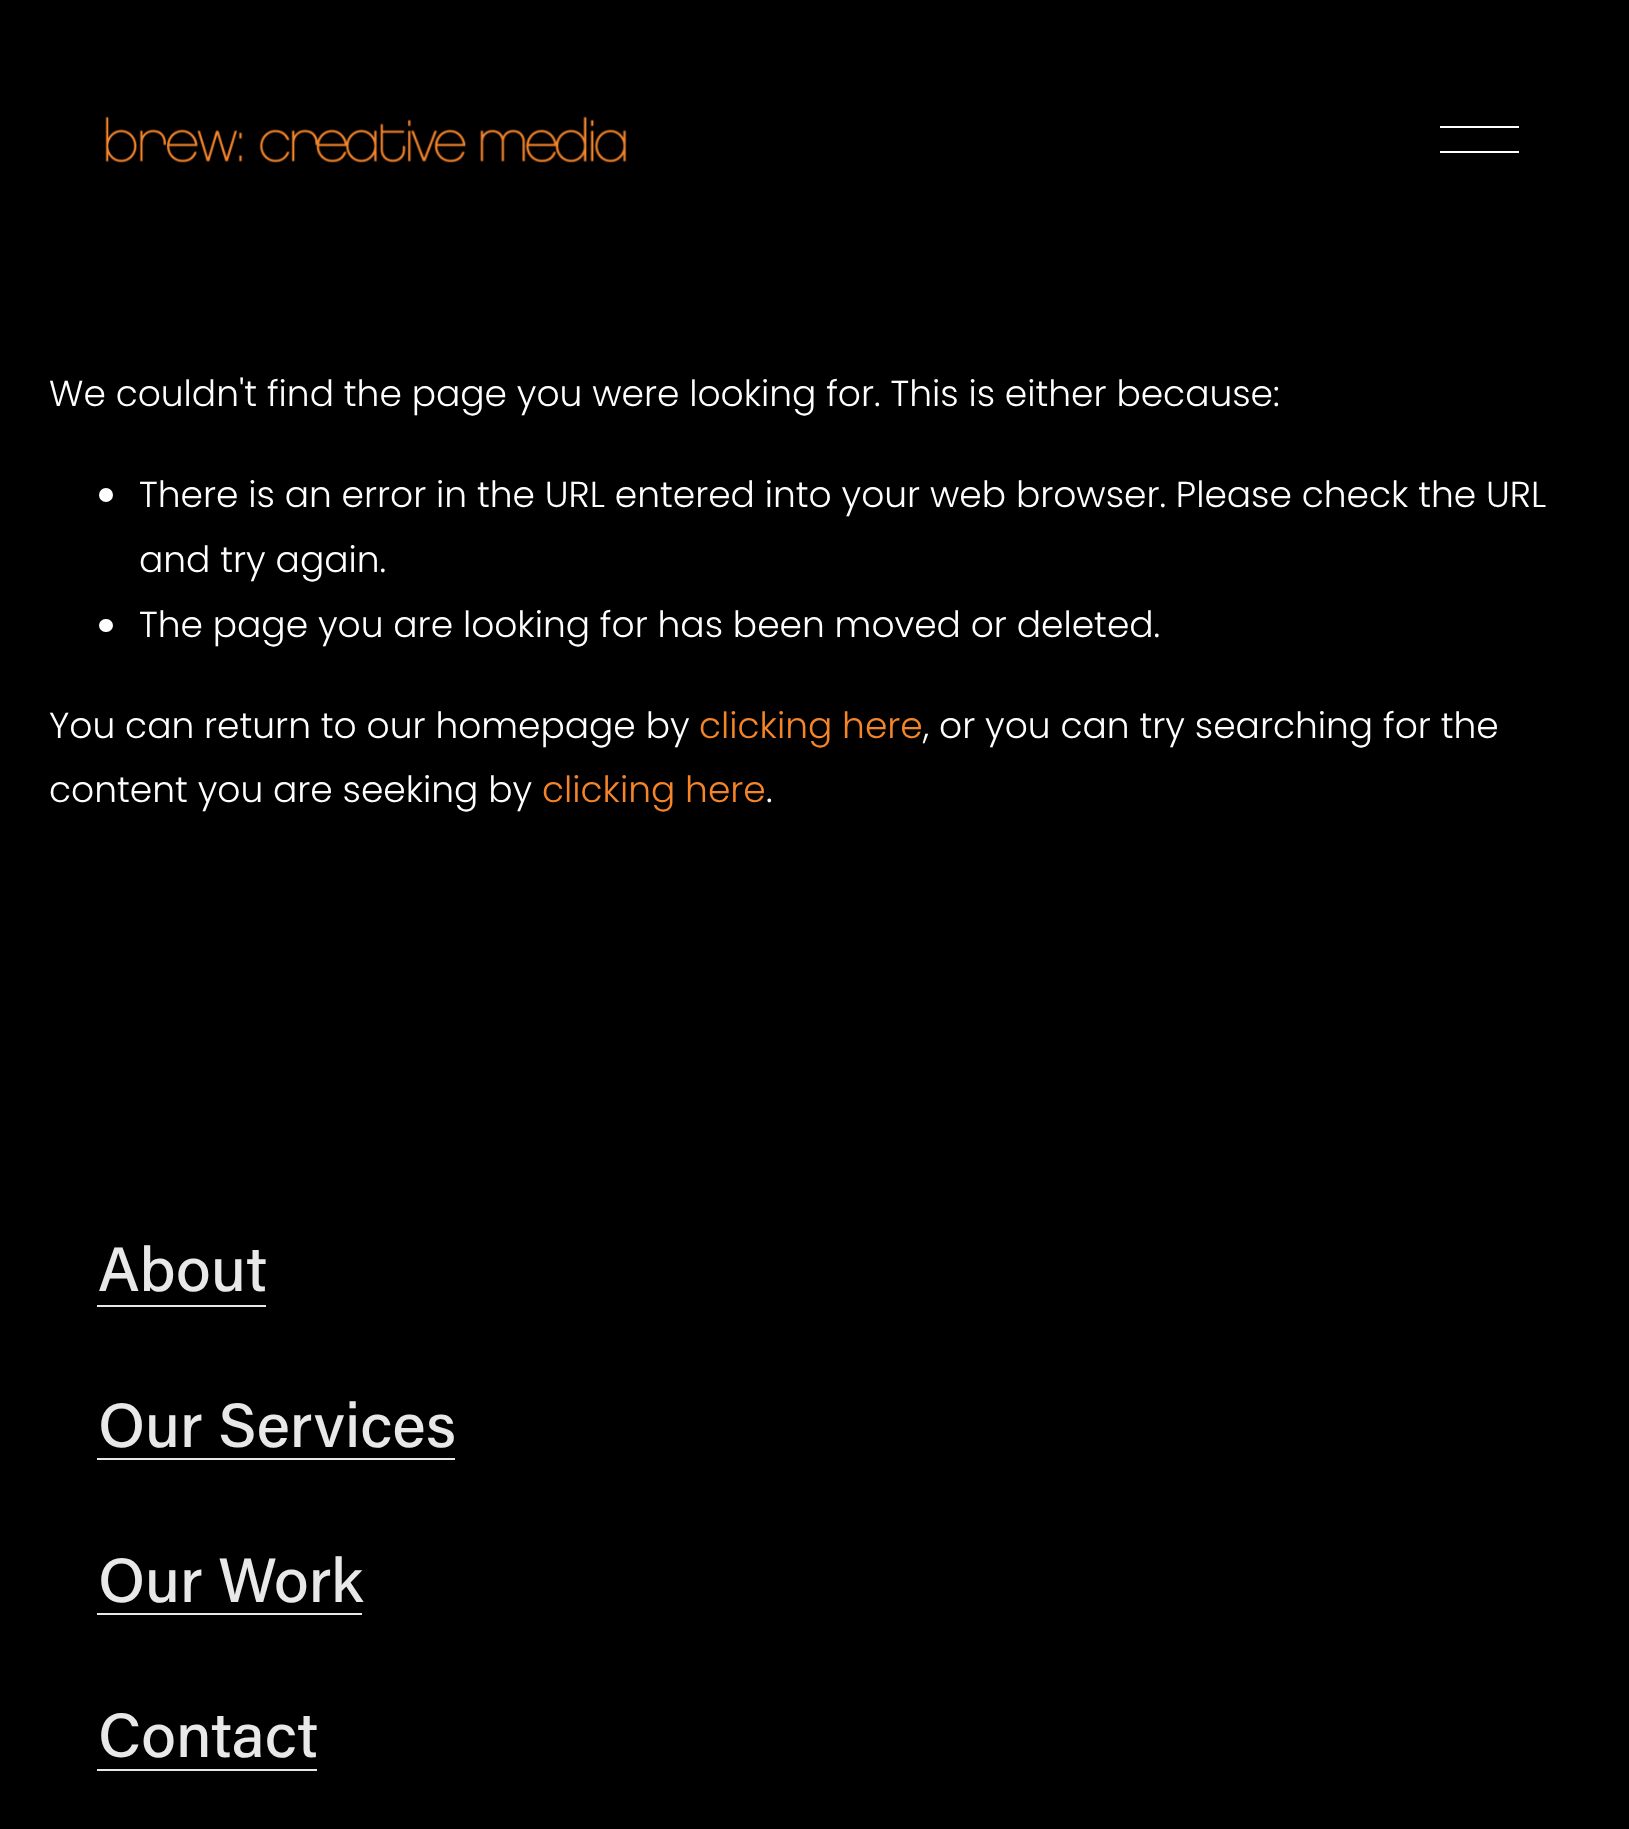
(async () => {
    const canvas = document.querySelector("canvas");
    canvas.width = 1629;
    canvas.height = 1829;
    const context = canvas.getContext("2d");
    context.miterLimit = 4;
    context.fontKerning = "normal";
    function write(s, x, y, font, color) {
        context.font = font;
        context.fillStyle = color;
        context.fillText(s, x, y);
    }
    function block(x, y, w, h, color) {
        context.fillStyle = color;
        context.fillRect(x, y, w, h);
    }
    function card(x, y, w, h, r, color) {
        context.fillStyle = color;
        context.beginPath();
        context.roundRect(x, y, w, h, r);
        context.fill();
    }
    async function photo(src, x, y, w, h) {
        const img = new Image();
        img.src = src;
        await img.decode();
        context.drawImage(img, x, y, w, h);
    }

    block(0, 0, 1629, 1829, "rgb(0, 0, 0)");
    await photo("media/1.png", 105, 116, 522, 47);
    block(1440, 126, 79, 2, "rgb(255, 255, 255)");
    block(1440, 151, 79, 2, "rgb(255, 255, 255)");
    write("We couldn't find the page you were looking for. This is either because:", 49, 406, "300 36px Poppins", "rgb(255, 255, 255)");
    context.beginPath();
    context.arc(106, 495, 7, 0, Math.PI * 2);
    context.fill();
    write("There is an error in the URL entered into your web browser. Please check the URL", 139, 507, "300 36px Poppins", "rgb(255, 255, 255)");
    write("and try again.", 139, 572, "300 36px Poppins", "rgb(255, 255, 255)");
    card(99, 619, 14, 13, 6.5, "rgb(255, 255, 255)");
    write("The page you are looking for has been moved or deleted.", 139, 637, "300 36px Poppins", "rgb(255, 255, 255)");
    write("You can return to our homepage by", 49, 738, "300 36px Poppins", "rgb(255, 255, 255)");
    write("clicking here", 699, 738, "300 36px Poppins", "rgb(246, 132, 40)");
    write(", or you can try searching for the", 923, 738, "300 36px Poppins", "rgb(255, 255, 255)");
    write("content you are seeking by", 49, 802, "300 36px Poppins", "rgb(255, 255, 255)");
    write("clicking here", 542, 802, "300 36px Poppins", "rgb(246, 132, 40)");
    write(".", 766, 802, "300 36px Poppins", "rgb(255, 255, 255)");
    write("About", 98, 1291, "500 62.5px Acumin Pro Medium", "rgb(232, 232, 232)");
    block(97, 1305, 169, 2, "rgb(232, 232, 232)");
    write("Our Services", 98, 1447, "500 62.5px Acumin Pro Medium", "rgb(232, 232, 232)");
    block(97, 1458, 358, 2, "rgb(232, 232, 232)");
    write("Our Work", 98, 1602, "500 62.5px Acumin Pro Medium", "rgb(232, 232, 232)");
    block(97, 1613, 265, 2, "rgb(232, 232, 232)");
    write("Contact", 98, 1757, "500 62.5px Acumin Pro Medium", "rgb(232, 232, 232)");
    block(97, 1769, 220, 2, "rgb(232, 232, 232)");
})();
